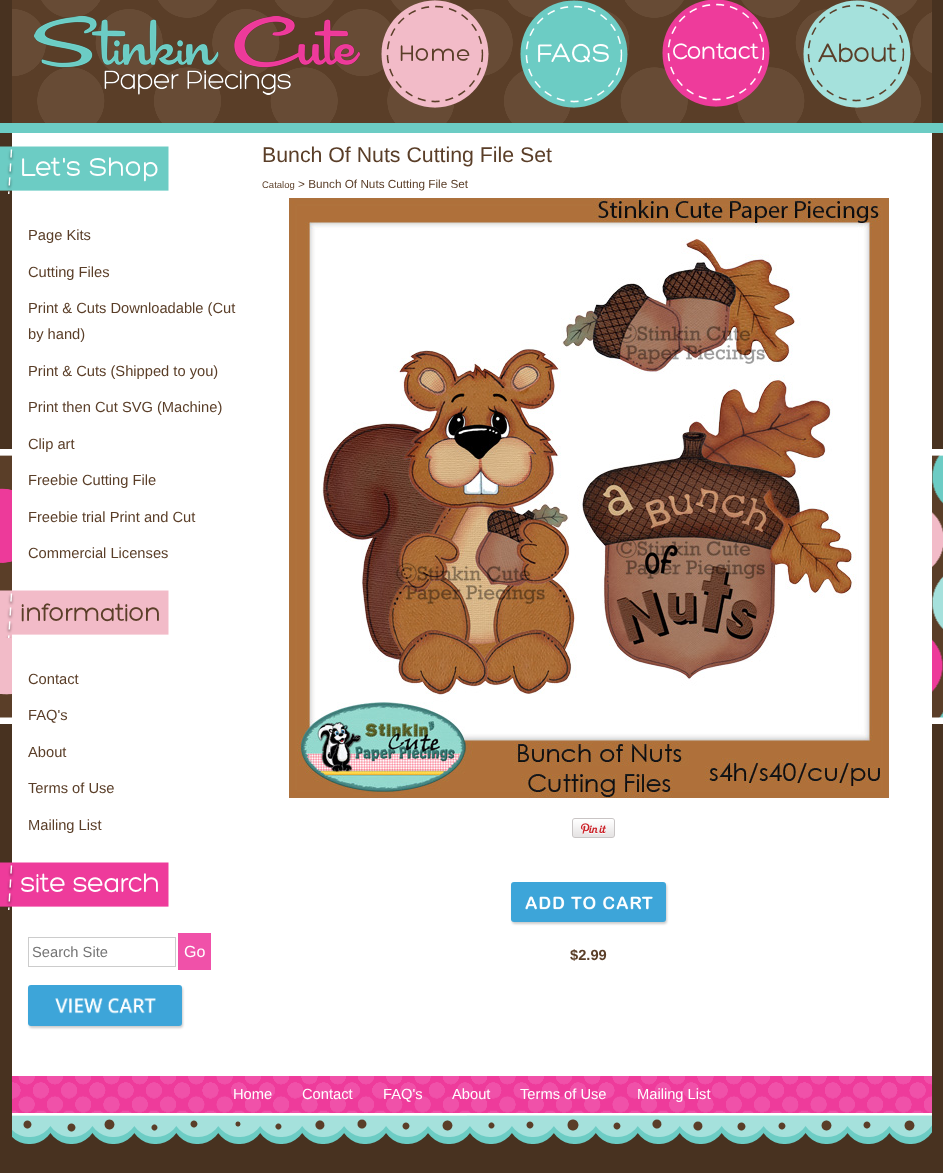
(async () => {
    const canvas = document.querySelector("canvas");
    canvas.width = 943;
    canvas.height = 1173;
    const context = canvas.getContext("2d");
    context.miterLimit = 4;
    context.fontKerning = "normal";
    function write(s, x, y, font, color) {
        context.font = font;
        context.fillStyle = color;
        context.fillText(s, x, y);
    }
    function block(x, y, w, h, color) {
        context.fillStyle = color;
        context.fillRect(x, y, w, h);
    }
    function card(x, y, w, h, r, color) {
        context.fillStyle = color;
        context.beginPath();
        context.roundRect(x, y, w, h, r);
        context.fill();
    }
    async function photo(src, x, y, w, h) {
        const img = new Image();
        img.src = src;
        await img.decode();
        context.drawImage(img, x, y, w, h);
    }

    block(0, 0, 943, 1173, "rgb(72, 50, 32)");
    await photo("media/1.png", 0, 449, 943, 275);
    await photo("media/2.png", 12, 0, 920, 123);
    block(0, 123, 943, 10, "rgb(108, 204, 196)");
    block(12, 133, 920, 943, "rgb(255, 255, 255)");
    await photo("media/3.png", 0, 146, 169, 48);
    write("Page Kits", 28, 240, "14.7px Liberation Sans", "rgb(90, 62, 40)");
    write("Cutting Files", 28, 277, "14.7px Liberation Sans", "rgb(90, 62, 40)");
    write("Print & Cuts Downloadable (Cut", 28, 313, "14.7px Liberation Sans", "rgb(90, 62, 40)");
    write("by hand)", 28, 339, "14.7px Liberation Sans", "rgb(90, 62, 40)");
    write("Print & Cuts (Shipped to you)", 28, 376, "14.7px Liberation Sans", "rgb(90, 62, 40)");
    write("Print then Cut SVG (Machine)", 28, 412, "14.7px Liberation Sans", "rgb(90, 62, 40)");
    write("Clip art", 28, 449, "14.7px Liberation Sans", "rgb(90, 62, 40)");
    write("Freebie Cutting File", 28, 485, "14.7px Liberation Sans", "rgb(90, 62, 40)");
    write("Freebie trial Print and Cut", 28, 522, "14.7px Liberation Sans", "rgb(90, 62, 40)");
    write("Commercial Licenses", 28, 558, "14.7px Liberation Sans", "rgb(90, 62, 40)");
    await photo("media/4.png", 0, 590, 169, 48);
    write("Contact", 28, 684, "14.7px Liberation Sans", "rgb(90, 62, 40)");
    write("FAQ's", 28, 720, "14.7px Liberation Sans", "rgb(90, 62, 40)");
    write("About", 28, 757, "14.7px Liberation Sans", "rgb(90, 62, 40)");
    write("Terms of Use", 28, 793, "14.7px Liberation Sans", "rgb(90, 62, 40)");
    write("Mailing List", 28, 830, "14.7px Liberation Sans", "rgb(90, 62, 40)");
    await photo("media/5.png", 0, 862, 169, 48);
    context.strokeStyle = "rgb(204, 204, 204)";
    context.strokeRect(28.5, 937.5, 147, 29);
    write("Search Site", 32, 957, "14.7px Liberation Sans", "rgb(117, 117, 117)");
    block(178, 933, 33, 37, "rgb(240, 81, 169)");
    write("Go", 184, 957, "16px Liberation Sans", "rgb(255, 255, 255)");
    context.fillStyle = "rgba(0, 0, 0, 0.2)";
    context.filter = "blur(1px)";
    context.beginPath();
    context.roundRect(29, 987, 154, 41, 3);
    context.fill();
    context.filter = "none";
    card(28, 985, 154, 41, 3, "rgb(61, 165, 217)");
    await photo("media/6.png", 55, 997, 101, 17);
    write("Bunch Of Nuts Cutting File Set", 262, 162, "21.3px Liberation Sans", "rgb(90, 62, 40)");
    write("Catalog", 262, 188, "9.5px Liberation Sans", "rgb(90, 62, 40)");
    write("> Bunch Of Nuts Cutting File Set", 298, 188, "11.75px Liberation Sans", "rgb(90, 62, 40)");
    await photo("media/7.png", 289, 198, 600, 600);
    await photo("media/8.png", 572, 818, 43, 20);
    context.fillStyle = "rgba(0, 0, 0, 0.2)";
    context.filter = "blur(1px)";
    context.beginPath();
    context.roundRect(512, 884, 155, 40, 3);
    context.fill();
    context.filter = "none";
    card(511, 882, 155, 40, 3, "rgb(61, 165, 217)");
    await photo("media/9.png", 525, 896, 128, 14);
    write("$2.99", 570, 960, "bold 14.7px Liberation Sans", "rgb(90, 62, 40)");
    await photo("media/10.png", 12, 1076, 920, 37);
    write("Home", 233, 1099, "14.7px Liberation Sans", "rgb(255, 255, 255)");
    write("Contact", 302, 1099, "14.7px Liberation Sans", "rgb(255, 255, 255)");
    write("FAQ's", 383, 1099, "14.7px Liberation Sans", "rgb(255, 255, 255)");
    write("About", 452, 1099, "14.7px Liberation Sans", "rgb(255, 255, 255)");
    write("Terms of Use", 520, 1099, "14.7px Liberation Sans", "rgb(255, 255, 255)");
    write("Mailing List", 637, 1099, "14.7px Liberation Sans", "rgb(255, 255, 255)");
    await photo("media/11.png", 12, 1113, 920, 31);
})();
